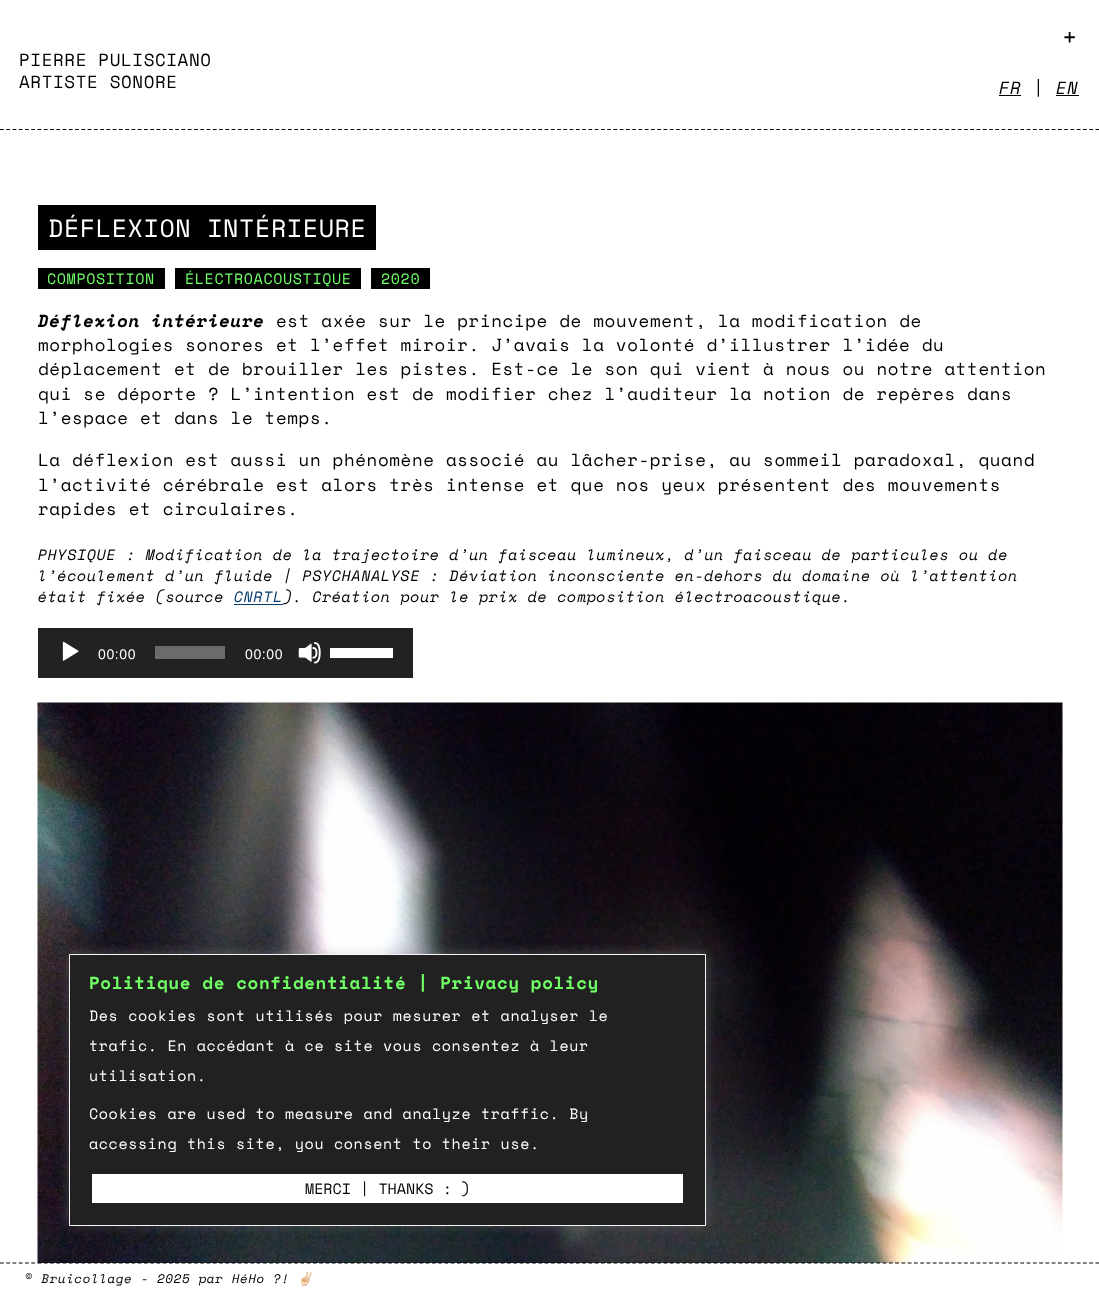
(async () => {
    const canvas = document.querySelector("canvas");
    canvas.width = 1099;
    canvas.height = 1294;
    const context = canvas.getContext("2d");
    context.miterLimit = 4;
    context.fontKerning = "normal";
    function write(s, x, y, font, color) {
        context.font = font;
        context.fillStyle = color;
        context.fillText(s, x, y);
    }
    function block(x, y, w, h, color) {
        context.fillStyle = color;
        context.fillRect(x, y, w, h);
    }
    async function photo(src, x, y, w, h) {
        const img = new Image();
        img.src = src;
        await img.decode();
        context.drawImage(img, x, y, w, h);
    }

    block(0, 0, 1099, 1294, "rgb(255, 255, 255)");
    context.beginPath();
    context.moveTo(0, 129.5);
    context.lineTo(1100, 129.5);
    context.strokeStyle = "rgb(0, 0, 0)";
    context.lineWidth = 1.2;
    context.setLineDash([3.75, 2.51]);
    context.stroke();
    context.letterSpacing = "0.62px";
    write("PIERRE PULISCIANO", 19, 66, "17.5px Space Mono", "rgb(0, 0, 0)");
    write("ARTISTE SONORE", 19, 88, "17.5px Space Mono", "rgb(0, 0, 0)");
    write("+", 1062, 46, "25px Space Mono", "rgb(0, 0, 0)");
    write("FR", 999, 94, "italic 17.5px Space Mono", "rgb(0, 0, 0)");
    block(999, 95, 22, 1, "rgb(0, 0, 0)");
    write("|", 1033, 94, "17.5px Space Mono", "rgb(0, 0, 0)");
    write("EN", 1056, 94, "italic 17.5px Space Mono", "rgb(0, 0, 0)");
    block(1056, 95, 23, 1, "rgb(0, 0, 0)");
    block(38, 205, 338, 45, "rgb(0, 0, 0)");
    write("DÉFLEXION INTÉRIEURE", 48, 237, "25px Space Mono", "rgb(255, 255, 255)");
    block(38, 268, 127, 21, "rgb(0, 0, 0)");
    write("COMPOSITION", 47, 284, "15px Space Mono", "rgb(113, 255, 102)");
    block(175, 268, 186, 21, "rgb(0, 0, 0)");
    write("ÉLECTROACOUSTIQUE", 185, 284, "15px Space Mono", "rgb(113, 255, 102)");
    block(371, 268, 59, 21, "rgb(0, 0, 0)");
    write("2020", 381, 284, "15px Space Mono", "rgb(113, 255, 102)");
    write("Déflexion intérieure", 38, 327, "italic bold 17.5px Space Mono", "rgb(0, 0, 0)");
    write("est axée sur le principe de mouvement, la modification de", 276, 327, "17.5px Space Mono", "rgb(0, 0, 0)");
    write("morphologies sonores et l’effet miroir. J’avais la volonté d’illustrer l’idée du", 38, 351, "17.5px Space Mono", "rgb(0, 0, 0)");
    write("déplacement et de brouiller les pistes. Est-ce le son qui vient à nous ou notre attention", 38, 375, "17.5px Space Mono", "rgb(0, 0, 0)");
    write("qui se déporte ? L’intention est de modifier chez l’auditeur la notion de repères dans", 38, 400, "17.5px Space Mono", "rgb(0, 0, 0)");
    write("l’espace et dans le temps.", 38, 424, "17.5px Space Mono", "rgb(0, 0, 0)");
    write("La déflexion est aussi un phénomène associé au lâcher-prise, au sommeil paradoxal, quand", 38, 466, "17.5px Space Mono", "rgb(0, 0, 0)");
    write("l’activité cérébrale est alors très intense et que nos yeux présentent des mouvements", 38, 491, "17.5px Space Mono", "rgb(0, 0, 0)");
    write("rapides et circulaires.", 38, 515, "17.5px Space Mono", "rgb(0, 0, 0)");
    write("PHYSIQUE : Modification de la trajectoire d’un faisceau lumineux, d’un faisceau de particules ou de", 38, 560, "italic 15px Space Mono", "rgb(0, 0, 0)");
    write("l’écoulement d’un fluide | PSYCHANALYSE : Déviation inconsciente en-dehors du domaine où l’attention", 38, 581, "italic 15px Space Mono", "rgb(0, 0, 0)");
    write("était fixée (source", 38, 602, "italic 15px Space Mono", "rgb(0, 0, 0)");
    write("CNRTL", 234, 602, "italic 15px Space Mono", "rgb(4, 59, 108)");
    block(234, 604, 49, 1, "rgb(4, 59, 108)");
    write("). Création pour le prix de composition électroacoustique.", 283, 602, "italic 15px Space Mono", "rgb(0, 0, 0)");
    block(38, 628, 375, 50, "rgb(34, 34, 34)");
    await photo("media/1.png", 62, 641, 17, 20);
    write("00:00", 98, 659, "14px Liberation Sans", "rgb(255, 255, 255)");
    block(155, 646, 70, 13, "rgb(107, 107, 107)");
    write("00:00", 245, 659, "14px Liberation Sans", "rgb(255, 255, 255)");
    await photo("media/2.png", 298, 642, 23, 22);
    block(330, 648, 63, 10, "rgb(255, 255, 255)");
    await photo("media/3.png", 37, 702, 1026, 561);
    context.fillStyle = "rgba(172, 171, 171, 0.3)";
    context.filter = "blur(6px)";
    context.beginPath();
    context.rect(69, 953, 637, 272);
    context.fill();
    context.filter = "none";
    context.fillStyle = "rgb(33, 33, 33)";
    context.beginPath();
    context.rect(69.5, 954.5, 636, 271);
    context.fill();
    context.strokeStyle = "rgb(244, 244, 244)";
    context.lineWidth = 1;
    context.setLineDash([]);
    context.stroke();
    write("Politique de confidentialité | Privacy policy", 89, 989, "bold 17.5px Space Mono", "rgb(113, 255, 102)");
    write("Des cookies sont utilisés pour mesurer et analyser le", 89, 1021, "15px Space Mono", "rgb(255, 255, 255)");
    write("trafic. En accédant à ce site vous consentez à leur", 89, 1051, "15px Space Mono", "rgb(255, 255, 255)");
    write("utilisation.", 89, 1081, "15px Space Mono", "rgb(255, 255, 255)");
    write("Cookies are used to measure and analyze traffic. By", 89, 1119, "15px Space Mono", "rgb(255, 255, 255)");
    write("accessing this site, you consent to their use.", 89, 1149, "15px Space Mono", "rgb(255, 255, 255)");
    block(92, 1174, 591, 29, "rgb(255, 255, 255)");
    context.letterSpacing = "0px";
    write("MERCI | THANKS : )", 305, 1194, "15px Space Mono", "rgb(0, 0, 0)");
    context.beginPath();
    context.moveTo(0, 1263);
    context.lineTo(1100, 1263);
    context.strokeStyle = "rgb(0, 0, 0)";
    context.lineWidth = 1.2;
    context.setLineDash([3.75, 2.51]);
    context.stroke();
    context.letterSpacing = "0.62px";
    write("© Bruicollage - 2025 par", 25, 1283, "italic 12.5px Space Mono", "rgb(0, 0, 0)");
    write("HéHo ?!", 232, 1283, "italic 12.5px Space Mono", "rgb(0, 0, 0)");
    write("✌🏻", 297, 1283, "italic 12.5px Noto Color Emoji", "rgb(0, 0, 0)");
})();
